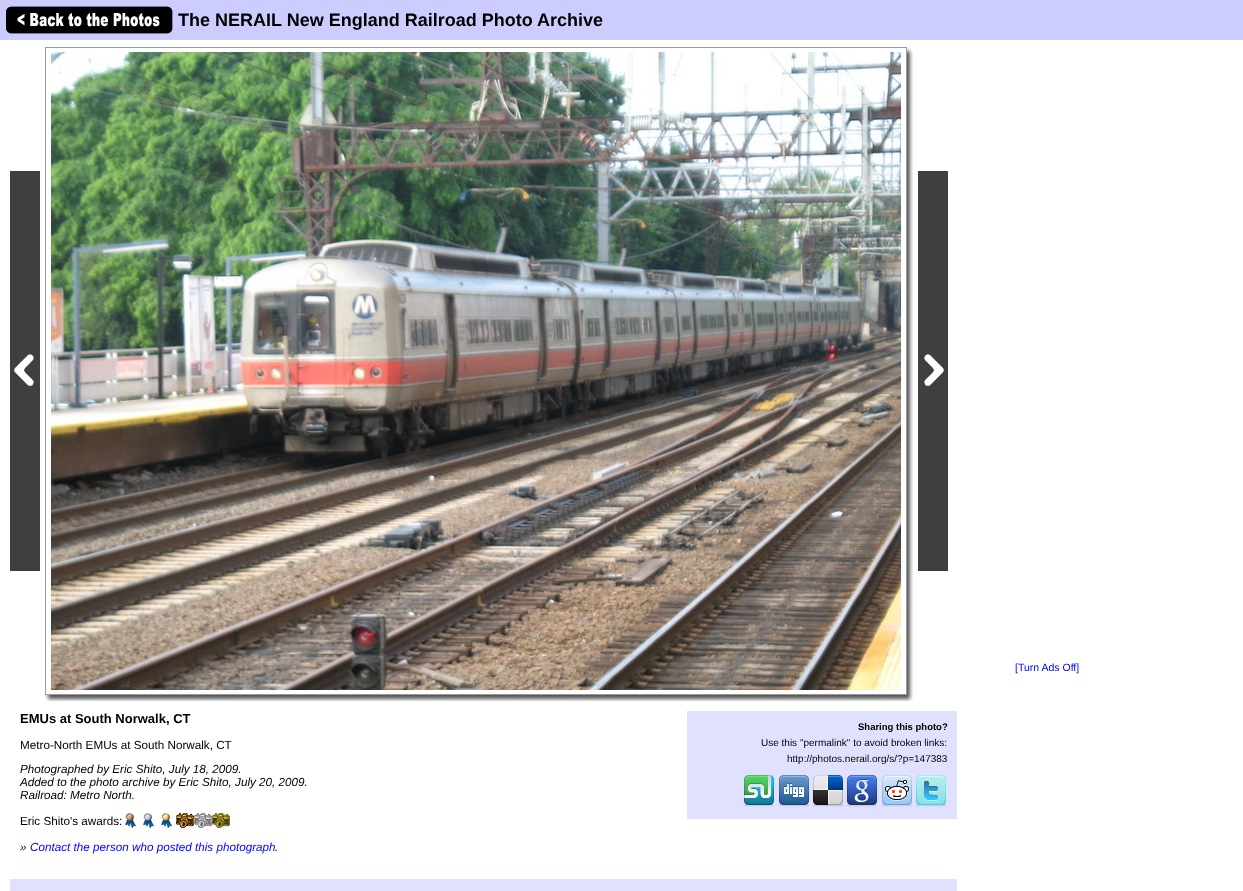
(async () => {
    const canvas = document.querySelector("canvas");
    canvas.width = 1243;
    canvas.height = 891;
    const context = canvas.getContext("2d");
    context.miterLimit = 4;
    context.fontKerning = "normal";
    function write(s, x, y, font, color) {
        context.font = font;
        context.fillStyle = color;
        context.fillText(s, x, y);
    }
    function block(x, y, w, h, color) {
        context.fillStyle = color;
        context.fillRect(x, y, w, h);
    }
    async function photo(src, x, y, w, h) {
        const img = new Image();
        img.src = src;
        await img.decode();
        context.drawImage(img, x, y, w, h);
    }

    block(0, 0, 1243, 891, "rgb(255, 255, 255)");
    block(0, 0, 1243, 40, "rgb(204, 204, 255)");
    await photo("media/1.png", 6, 6, 167, 28);
    write("The NERAIL New England Railroad Photo Archive", 178, 26, "bold 18px Liberation Sans", "rgb(0, 0, 0)");
    write("[Turn Ads Off]", 1015, 671, "10.5px Liberation Sans", "rgb(0, 0, 255)");
    await photo("media/2.png", 10, 171, 30, 400);
    context.strokeStyle = "rgb(154, 154, 154)";
    context.strokeRect(45.5, 47.5, 861, 647);
    await photo("media/3.png", 51, 52, 850, 638);
    await photo("media/4.png", 907, 47, 6, 648);
    await photo("media/5.png", 918, 171, 30, 400);
    await photo("media/6.png", 45, 695, 862, 6);
    await photo("media/7.png", 907, 695, 6, 6);
    write("EMUs at South Norwalk, CT", 20, 723, "bold 13px Liberation Sans", "rgb(0, 0, 0)");
    write("Metro-North EMUs at South Norwalk, CT", 20, 749, "11.7px Liberation Sans", "rgb(0, 0, 0)");
    write("Photographed by Eric Shito, July 18, 2009.", 20, 773, "italic 11.7px Liberation Sans", "rgb(0, 0, 0)");
    write("Added to the photo archive by Eric Shito, July 20, 2009.", 20, 786, "italic 11.7px Liberation Sans", "rgb(0, 0, 0)");
    write("Railroad: Metro North.", 20, 799, "italic 11.7px Liberation Sans", "rgb(0, 0, 0)");
    write("Eric Shito's awards:", 20, 825, "11.7px Liberation Sans", "rgb(0, 0, 0)");
    await photo("media/8.png", 125, 813, 11, 15);
    await photo("media/9.png", 143, 813, 11, 15);
    await photo("media/10.png", 161, 813, 11, 15);
    await photo("media/11.png", 176, 813, 18, 15);
    await photo("media/12.png", 194, 813, 18, 15);
    await photo("media/13.png", 212, 813, 18, 15);
    write("»", 20, 851, "italic 11.7px Liberation Sans", "rgb(0, 0, 0)");
    write("Contact the person who posted this photograph", 30, 851, "italic 11.7px Liberation Sans", "rgb(0, 0, 255)");
    write(".", 275, 851, "italic 11.7px Liberation Sans", "rgb(0, 0, 0)");
    block(687, 711, 270, 108, "rgb(224, 224, 255)");
    write("Sharing this photo?", 858, 730, "bold 9.5px Liberation Sans", "rgb(0, 0, 0)");
    write("Use this \"permalink\" to avoid broken links:", 761, 746, "10px Liberation Sans", "rgb(0, 0, 0)");
    write("http://photos.nerail.org/s/?p=147383", 787, 762, "10px Liberation Sans", "rgb(0, 0, 0)");
    await photo("media/14.png", 744, 775, 30, 32);
    await photo("media/15.png", 779, 775, 30, 32);
    await photo("media/16.png", 812, 775, 32, 32);
    await photo("media/17.png", 847, 775, 30, 32);
    await photo("media/18.png", 882, 775, 30, 32);
    await photo("media/19.png", 916, 775, 30, 32);
    block(10, 879, 947, 12, "rgb(224, 224, 255)");
})();
